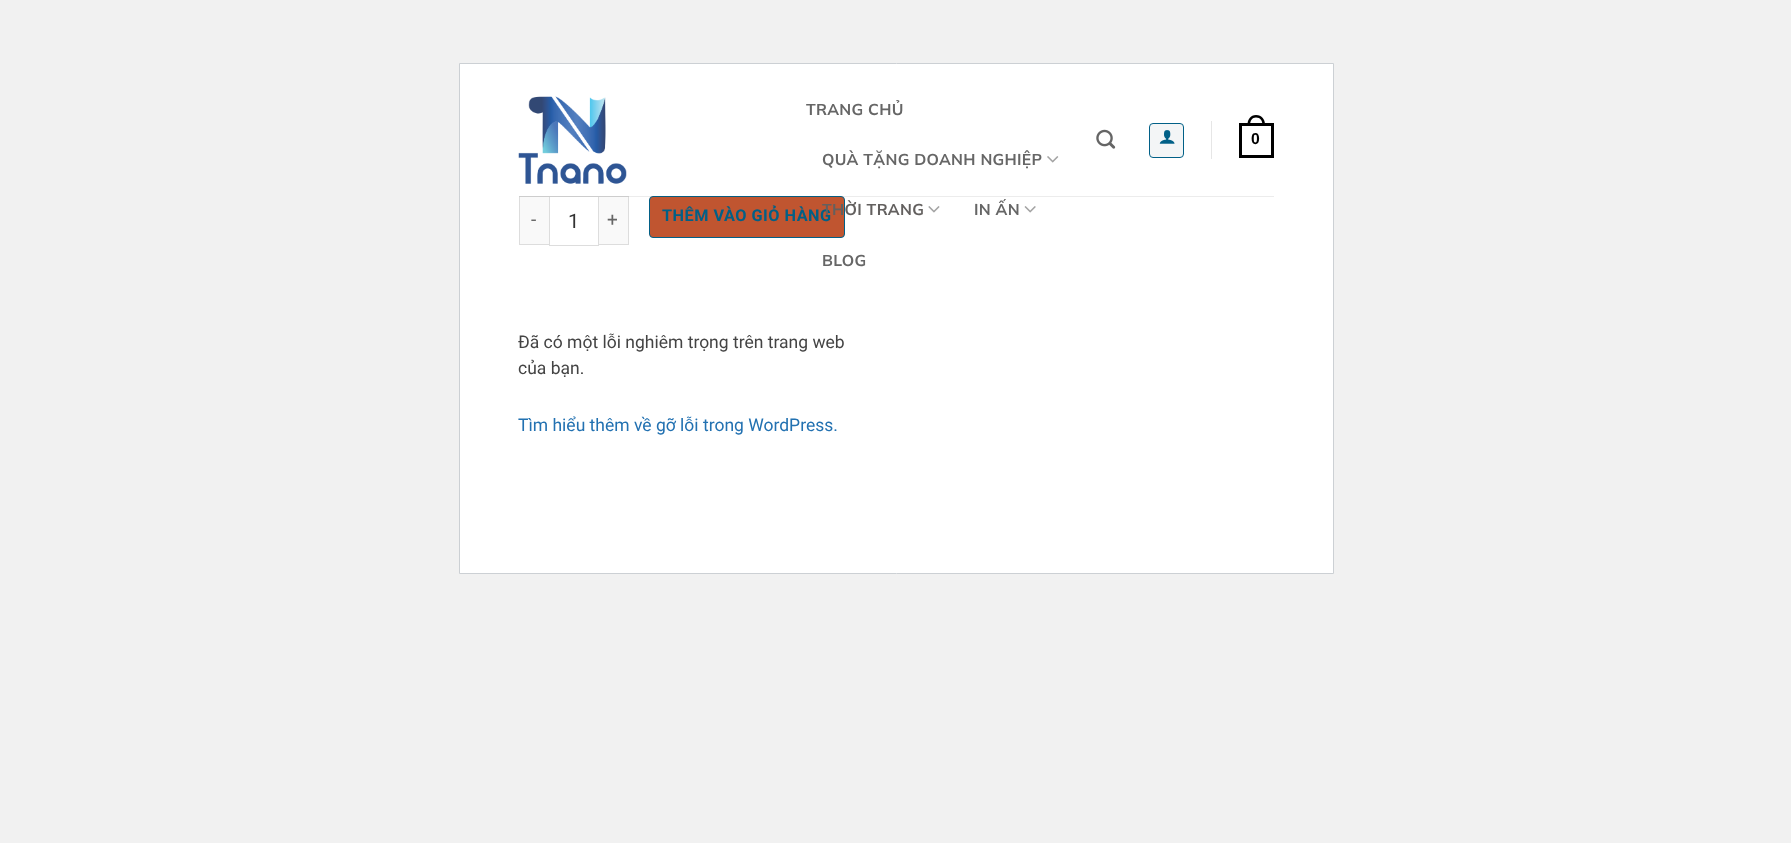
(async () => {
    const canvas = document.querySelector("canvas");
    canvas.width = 1791;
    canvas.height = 843;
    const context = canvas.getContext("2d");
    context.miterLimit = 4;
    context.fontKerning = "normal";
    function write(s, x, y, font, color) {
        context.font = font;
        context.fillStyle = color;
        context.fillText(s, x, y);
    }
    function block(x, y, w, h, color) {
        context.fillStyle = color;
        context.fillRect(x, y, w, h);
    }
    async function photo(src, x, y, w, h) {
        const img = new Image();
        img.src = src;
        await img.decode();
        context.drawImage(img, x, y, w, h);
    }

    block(0, 0, 1791, 843, "rgb(241, 241, 241)");
    context.fillStyle = "rgb(255, 255, 255)";
    context.beginPath();
    context.rect(459.5, 63.5, 874, 510);
    context.fill();
    context.strokeStyle = "rgb(204, 208, 212)";
    context.stroke();
    await photo("media/1.png", 518, 96, 109, 88);
    context.letterSpacing = "0.3px";
    write("TRANG CHỦ", 806, 115, "bold 15.75px Mulish", "rgb(102, 102, 102)");
    write("QUÀ TẶNG DOANH NGHIỆP", 822, 165, "bold 15.75px Mulish", "rgb(102, 102, 102)");
    await photo("media/2.png", 1047, 156, 12, 7);
    context.fillStyle = "rgb(192, 85, 48)";
    context.beginPath();
    context.roundRect(649.5, 196.5, 195, 41, 3.5);
    context.fill();
    context.strokeStyle = "rgb(1, 96, 135)";
    context.stroke();
    context.letterSpacing = "0.5px";
    write("THÊM VÀO GIỎ HÀNG", 662, 221, "bold 16.25px Roboto", "rgb(1, 96, 135)");
    context.letterSpacing = "0.3px";
    write("THỜI TRANG", 822, 215, "bold 15.75px Mulish", "rgb(99, 96, 95)");
    await photo("media/3.png", 928, 206, 12, 7);
    write("IN ẤN", 974, 215, "bold 15.75px Mulish", "rgb(102, 102, 102)");
    await photo("media/4.png", 1024, 206, 12, 7);
    write("BLOG", 822, 266, "bold 15.75px Mulish", "rgb(102, 102, 102)");
    await photo("media/5.png", 1096, 129, 20, 20);
    context.fillStyle = "rgb(243, 245, 246)";
    context.beginPath();
    context.roundRect(1149.5, 123.5, 34, 34, 3.5);
    context.fill();
    context.stroke();
    await photo("media/6.png", 1159, 130, 16, 14);
    block(1211, 121, 1, 38, "rgb(230, 230, 230)");
    context.strokeStyle = "rgb(0, 0, 0)";
    context.lineWidth = 3;
    context.strokeRect(1240.5, 124.5, 32, 32);
    context.fillStyle = "rgb(0, 0, 0)";
    context.beginPath();
    context.moveTo(1256, 115);
    context.bezierCurveTo(1262, 115, 1265, 119.5, 1265, 125);
    context.lineTo(1247.5, 125);
    context.bezierCurveTo(1247.5, 119.5, 1250.5, 115, 1256, 115);
    context.closePath();
    context.moveTo(1256, 117.5);
    context.bezierCurveTo(1260.5, 117.5, 1262.5, 121, 1262.5, 125);
    context.lineTo(1250, 125);
    context.bezierCurveTo(1250, 121, 1252, 117.5, 1256, 117.5);
    context.closePath();
    context.fill("evenodd");
    write("0", 1251, 144, "bold 15.75px Liberation Sans", "rgb(0, 0, 0)");
    block(519, 196, 30, 1, "rgb(221, 221, 221)");
    block(519, 244, 30, 1, "rgb(221, 221, 221)");
    block(519, 196, 1, 49, "rgb(221, 221, 221)");
    context.strokeStyle = "rgb(221, 221, 221)";
    context.lineWidth = 1;
    context.strokeRect(549.5, 196.5, 49, 49);
    block(599, 196, 30, 1, "rgb(221, 221, 221)");
    block(628, 196, 1, 49, "rgb(221, 221, 221)");
    block(519, 196, 755, 1, "rgba(68, 68, 68, 0.1)");
    block(520, 197, 29, 47, "rgb(249, 249, 249)");
    context.letterSpacing = "1px";
    write("-", 531, 226, "19px Roboto", "rgb(102, 102, 102)");
    context.letterSpacing = "0px";
    write("1", 568, 228, "20px Roboto", "rgb(51, 51, 51)");
    block(599, 197, 29, 47, "rgb(249, 249, 249)");
    block(599, 244, 30, 1, "rgb(221, 221, 221)");
    context.letterSpacing = "1px";
    write("+", 607, 226, "19px Roboto", "rgb(102, 102, 102)");
    context.letterSpacing = "0px";
    write("Đã có một lỗi nghiêm trọng trên trang web", 518, 348, "17.5px Roboto", "rgb(68, 68, 68)");
    write("của bạn.", 518, 374, "17.5px Roboto", "rgb(68, 68, 68)");
    write("Tìm hiểu thêm về gỡ lỗi trong WordPress.", 518, 431, "17.5px Roboto", "rgb(34, 113, 177)");
})();
